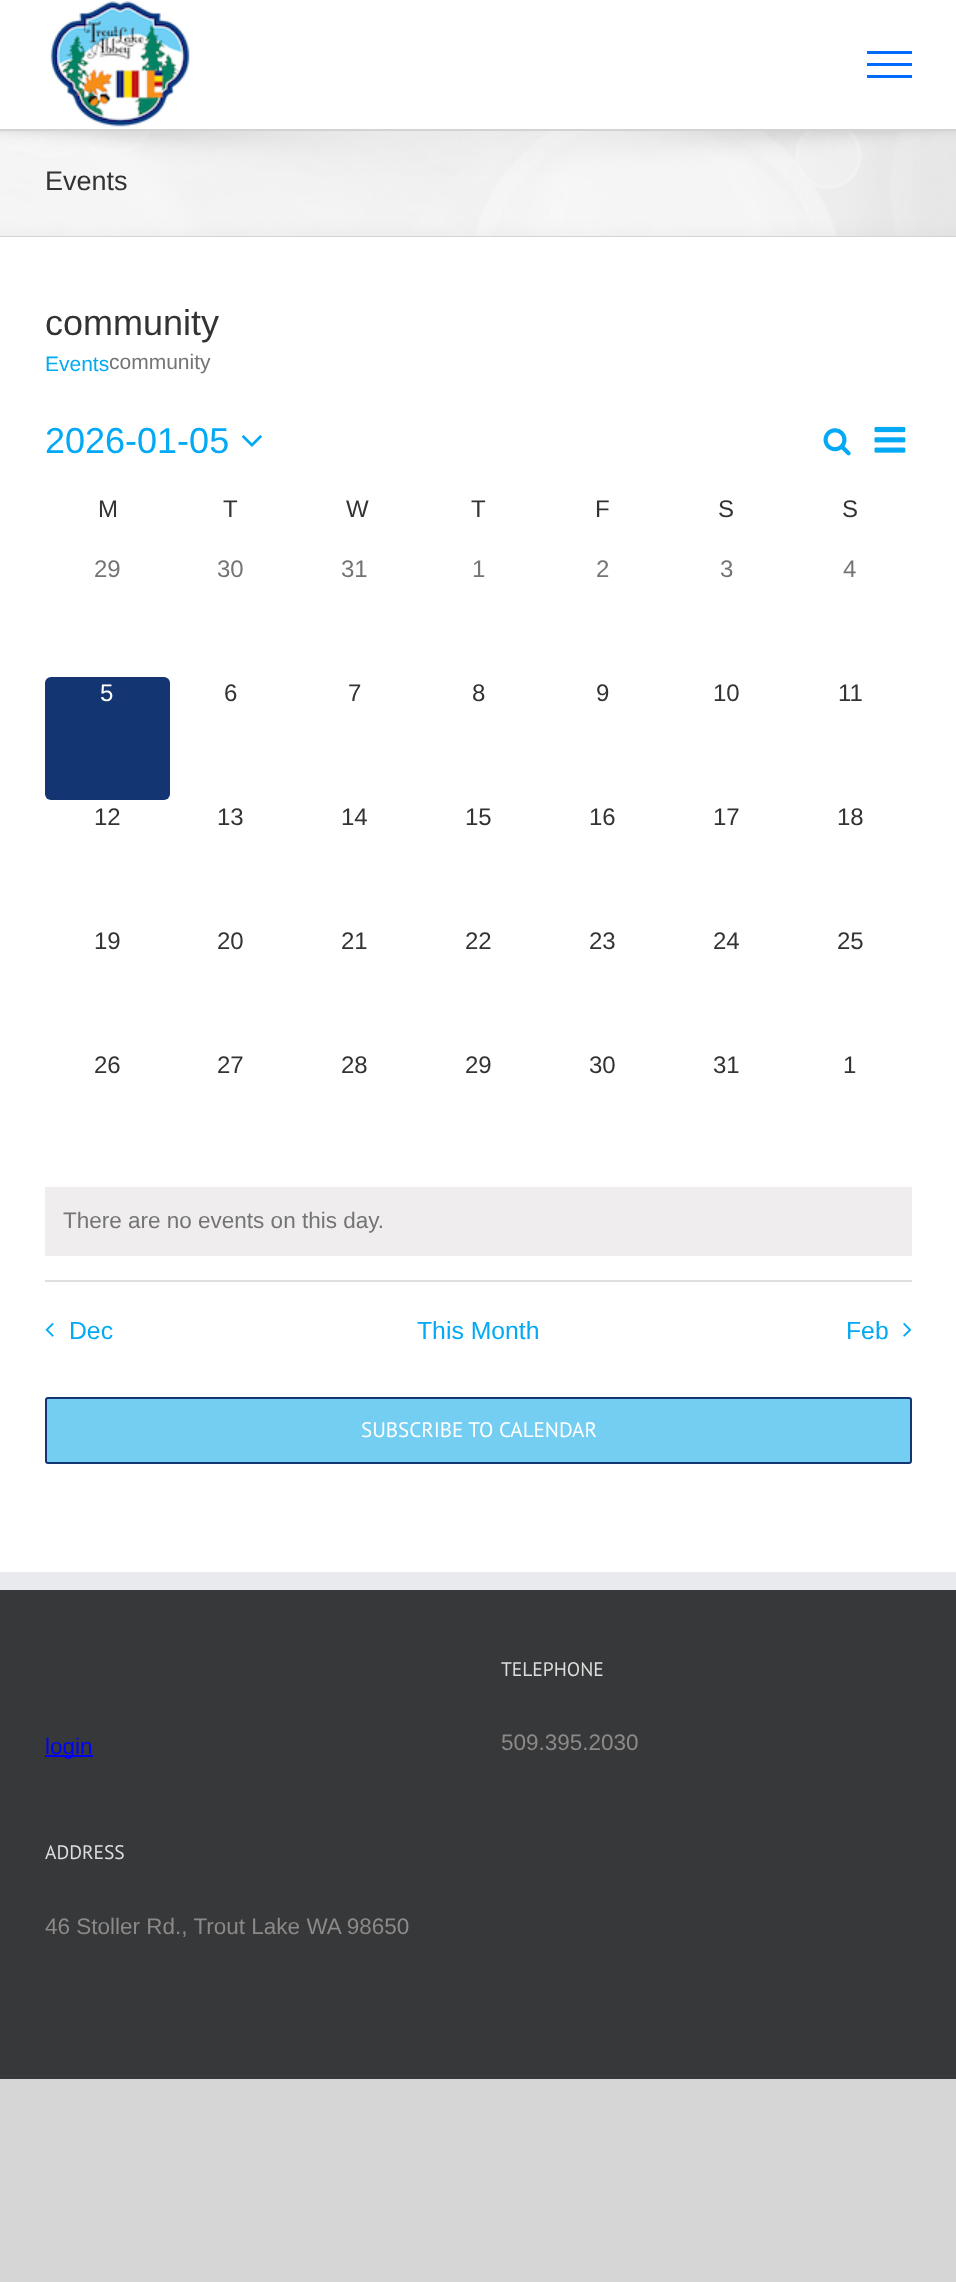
(async () => {
    const canvas = document.querySelector("canvas");
    canvas.width = 956;
    canvas.height = 2282;
    const context = canvas.getContext("2d");
    context.miterLimit = 4;
    context.fontKerning = "normal";
    function write(s, x, y, font, color) {
        context.font = font;
        context.fillStyle = color;
        context.fillText(s, x, y);
    }
    function block(x, y, w, h, color) {
        context.fillStyle = color;
        context.fillRect(x, y, w, h);
    }
    function card(x, y, w, h, r, color) {
        context.fillStyle = color;
        context.beginPath();
        context.roundRect(x, y, w, h, r);
        context.fill();
    }
    async function photo(src, x, y, w, h) {
        const img = new Image();
        img.src = src;
        await img.decode();
        context.drawImage(img, x, y, w, h);
    }

    block(0, 0, 956, 2282, "rgb(215, 214, 214)");
    block(0, 0, 956, 129, "rgb(255, 255, 255)");
    await photo("media/1.png", 50, 1, 140, 126);
    block(867, 51, 45, 3, "rgb(0, 106, 255)");
    block(867, 63, 45, 3, "rgb(0, 106, 255)");
    block(867, 75, 45, 3, "rgb(0, 106, 255)");
    block(0, 131, 956, 105, "rgb(246, 246, 246)");
    await photo("media/2.png", 0, 131, 956, 105);
    block(0, 129, 956, 2, "rgb(210, 211, 212)");
    block(0, 236, 956, 1, "rgb(210, 211, 212)");
    write("Events", 45, 190, "27px Liberation Sans", "rgb(51, 51, 51)");
    block(0, 237, 956, 1335, "rgb(255, 255, 255)");
    write("community", 45, 335, "36px Liberation Sans", "rgb(51, 51, 51)");
    write("Events", 45, 371, "21px Liberation Sans", "rgb(3, 169, 244)");
    write("community", 109, 369, "21px Liberation Sans", "rgb(116, 116, 116)");
    write("2026-01-05", 45, 453, "36px Liberation Sans", "rgb(3, 169, 244)");
    await photo("media/3.png", 241, 435, 21, 12);
    await photo("media/4.png", 823, 428, 28, 28);
    await photo("media/5.png", 874, 426, 32, 27);
    write("M", 98, 517, "24px Liberation Sans", "rgb(51, 51, 51)");
    write("T", 223, 517, "24px Liberation Sans", "rgb(51, 51, 51)");
    write("W", 346, 517, "24px Liberation Sans", "rgb(51, 51, 51)");
    write("T", 471, 517, "24px Liberation Sans", "rgb(51, 51, 51)");
    write("F", 595, 517, "24px Liberation Sans", "rgb(51, 51, 51)");
    write("S", 718, 517, "24px Liberation Sans", "rgb(51, 51, 51)");
    write("S", 842, 517, "24px Liberation Sans", "rgb(51, 51, 51)");
    write("29", 94, 577, "24px Liberation Sans", "rgb(116, 116, 116)");
    write("30", 217, 577, "24px Liberation Sans", "rgb(116, 116, 116)");
    write("31", 341, 577, "24px Liberation Sans", "rgb(116, 116, 116)");
    write("1", 472, 577, "24px Liberation Sans", "rgb(116, 116, 116)");
    write("2", 596, 577, "24px Liberation Sans", "rgb(116, 116, 116)");
    write("3", 720, 577, "24px Liberation Sans", "rgb(116, 116, 116)");
    write("4", 843, 577, "24px Liberation Sans", "rgb(116, 116, 116)");
    card(45, 677, 125, 123, 6, "rgb(19, 54, 114)");
    write("5", 100, 701, "24px Liberation Sans", "rgb(255, 255, 255)");
    write("6", 224, 701, "24px Liberation Sans", "rgb(51, 51, 51)");
    write("7", 348, 701, "24px Liberation Sans", "rgb(51, 51, 51)");
    write("8", 472, 701, "24px Liberation Sans", "rgb(51, 51, 51)");
    write("9", 596, 701, "24px Liberation Sans", "rgb(51, 51, 51)");
    write("10", 713, 701, "24px Liberation Sans", "rgb(51, 51, 51)");
    write("11", 838, 701, "24px Liberation Sans", "rgb(51, 51, 51)");
    write("12", 94, 825, "24px Liberation Sans", "rgb(51, 51, 51)");
    write("13", 217, 825, "24px Liberation Sans", "rgb(51, 51, 51)");
    write("14", 341, 825, "24px Liberation Sans", "rgb(51, 51, 51)");
    write("15", 465, 825, "24px Liberation Sans", "rgb(51, 51, 51)");
    write("16", 589, 825, "24px Liberation Sans", "rgb(51, 51, 51)");
    write("17", 713, 825, "24px Liberation Sans", "rgb(51, 51, 51)");
    write("18", 837, 825, "24px Liberation Sans", "rgb(51, 51, 51)");
    write("19", 94, 949, "24px Liberation Sans", "rgb(51, 51, 51)");
    write("20", 217, 949, "24px Liberation Sans", "rgb(51, 51, 51)");
    write("21", 341, 949, "24px Liberation Sans", "rgb(51, 51, 51)");
    write("22", 465, 949, "24px Liberation Sans", "rgb(51, 51, 51)");
    write("23", 589, 949, "24px Liberation Sans", "rgb(51, 51, 51)");
    write("24", 713, 949, "24px Liberation Sans", "rgb(51, 51, 51)");
    write("25", 837, 949, "24px Liberation Sans", "rgb(51, 51, 51)");
    write("26", 94, 1073, "24px Liberation Sans", "rgb(51, 51, 51)");
    write("27", 217, 1073, "24px Liberation Sans", "rgb(51, 51, 51)");
    write("28", 341, 1073, "24px Liberation Sans", "rgb(51, 51, 51)");
    write("29", 465, 1073, "24px Liberation Sans", "rgb(51, 51, 51)");
    write("30", 589, 1073, "24px Liberation Sans", "rgb(51, 51, 51)");
    write("31", 713, 1073, "24px Liberation Sans", "rgb(51, 51, 51)");
    write("1", 843, 1073, "24px Liberation Sans", "rgb(51, 51, 51)");
    block(45, 1187, 867, 69, "rgb(239, 237, 237)");
    write("There are no events on this day.", 63, 1228, "22.5px Liberation Sans", "rgb(116, 116, 116)");
    block(45, 1280, 867, 2, "rgb(224, 222, 222)");
    await photo("media/6.png", 45, 1323, 9, 14);
    write("Dec", 69, 1339, "24.75px Liberation Sans", "rgb(3, 169, 244)");
    write("This Month", 417, 1339, "24.75px Liberation Sans", "rgb(3, 169, 244)");
    write("Feb", 846, 1339, "24.75px Liberation Sans", "rgb(3, 169, 244)");
    await photo("media/7.png", 903, 1323, 9, 14);
    context.fillStyle = "rgb(115, 206, 242)";
    context.beginPath();
    context.roundRect(46, 1398, 865, 65, 2);
    context.fill();
    context.strokeStyle = "rgb(19, 54, 114)";
    context.lineWidth = 2;
    context.stroke();
    write("SUBSCRIBE TO CALENDAR", 361, 1437, "21px PT Sans", "rgb(255, 255, 255)");
    block(0, 1590, 956, 489, "rgb(54, 56, 57)");
    block(0, 1572, 956, 18, "rgb(233, 234, 238)");
    block(45, 1755, 48, 2, "rgb(0, 0, 255)");
    write("login", 45, 1754, "22.5px Liberation Sans", "rgb(0, 0, 255)");
    write("TELEPHONE", 501, 1676, "19.5px PT Sans", "rgb(221, 221, 221)");
    write("509.395.2030", 501, 1750, "22.5px Liberation Sans", "rgb(140, 137, 137)");
    write("ADDRESS", 45, 1859, "19.5px PT Sans", "rgb(221, 221, 221)");
    write("46 Stoller Rd., Trout Lake WA 98650", 45, 1934, "22.5px Liberation Sans", "rgb(140, 137, 137)");
})();
